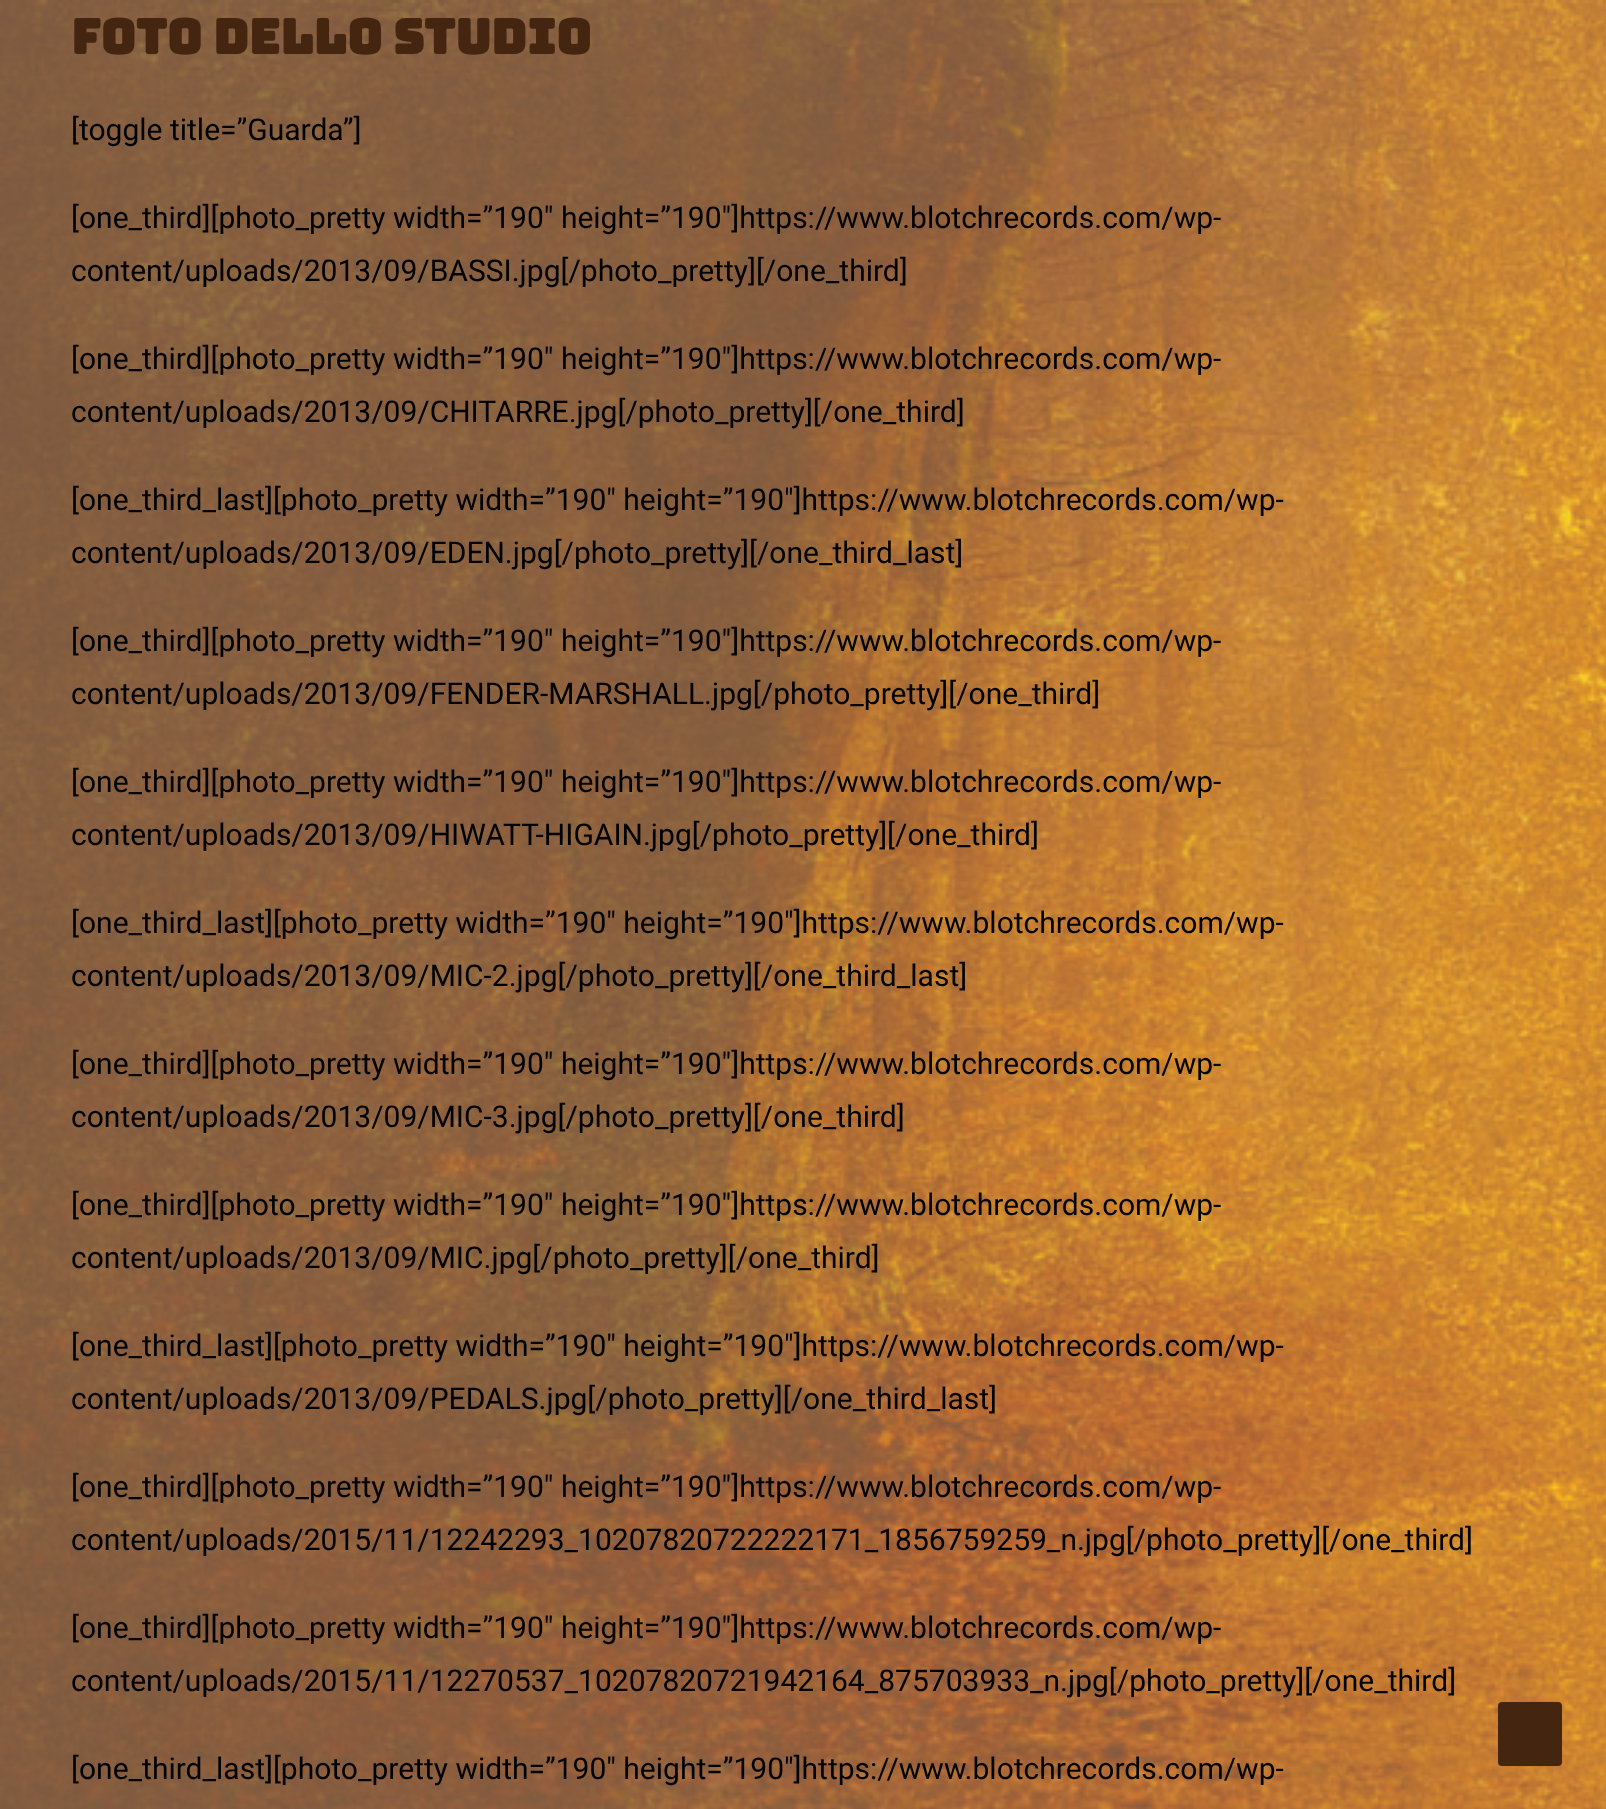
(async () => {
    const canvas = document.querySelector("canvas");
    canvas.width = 1606;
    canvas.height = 1809;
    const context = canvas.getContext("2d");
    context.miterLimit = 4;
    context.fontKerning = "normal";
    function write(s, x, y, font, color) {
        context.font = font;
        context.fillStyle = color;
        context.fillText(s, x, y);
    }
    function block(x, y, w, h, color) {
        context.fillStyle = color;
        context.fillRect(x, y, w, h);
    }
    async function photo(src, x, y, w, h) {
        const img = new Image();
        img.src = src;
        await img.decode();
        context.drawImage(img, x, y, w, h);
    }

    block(0, 0, 1606, 1809, "rgb(255, 255, 255)");
    await photo("media/1.png", 0, 0, 1606, 1809);
    write("Foto dello studio", 71, 54, "bold 48px Bungee", "rgb(68, 37, 16)");
    write("[toggle title=”Guarda”]", 71, 140, "30px Roboto", "rgb(0, 0, 0)");
    write("[one_third][photo_pretty width=”190″ height=”190″]https://www.blotchrecords.com/wp-", 71, 228, "30px Roboto", "rgb(0, 0, 0)");
    write("content/uploads/2013/09/BASSI.jpg[/photo_pretty][/one_third]", 71, 281, "30px Roboto", "rgb(0, 0, 0)");
    write("[one_third][photo_pretty width=”190″ height=”190″]https://www.blotchrecords.com/wp-", 71, 369, "30px Roboto", "rgb(0, 0, 0)");
    write("content/uploads/2013/09/CHITARRE.jpg[/photo_pretty][/one_third]", 71, 422, "30px Roboto", "rgb(0, 0, 0)");
    write("[one_third_last][photo_pretty width=”190″ height=”190″]https://www.blotchrecords.com/wp-", 71, 510, "30px Roboto", "rgb(0, 0, 0)");
    write("content/uploads/2013/09/EDEN.jpg[/photo_pretty][/one_third_last]", 71, 563, "30px Roboto", "rgb(0, 0, 0)");
    write("[one_third][photo_pretty width=”190″ height=”190″]https://www.blotchrecords.com/wp-", 71, 651, "30px Roboto", "rgb(0, 0, 0)");
    write("content/uploads/2013/09/FENDER-MARSHALL.jpg[/photo_pretty][/one_third]", 71, 704, "30px Roboto", "rgb(0, 0, 0)");
    write("[one_third][photo_pretty width=”190″ height=”190″]https://www.blotchrecords.com/wp-", 71, 792, "30px Roboto", "rgb(0, 0, 0)");
    write("content/uploads/2013/09/HIWATT-HIGAIN.jpg[/photo_pretty][/one_third]", 71, 845, "30px Roboto", "rgb(0, 0, 0)");
    write("[one_third_last][photo_pretty width=”190″ height=”190″]https://www.blotchrecords.com/wp-", 71, 933, "30px Roboto", "rgb(0, 0, 0)");
    write("content/uploads/2013/09/MIC-2.jpg[/photo_pretty][/one_third_last]", 71, 986, "30px Roboto", "rgb(0, 0, 0)");
    write("[one_third][photo_pretty width=”190″ height=”190″]https://www.blotchrecords.com/wp-", 71, 1074, "30px Roboto", "rgb(0, 0, 0)");
    write("content/uploads/2013/09/MIC-3.jpg[/photo_pretty][/one_third]", 71, 1127, "30px Roboto", "rgb(0, 0, 0)");
    write("[one_third][photo_pretty width=”190″ height=”190″]https://www.blotchrecords.com/wp-", 71, 1215, "30px Roboto", "rgb(0, 0, 0)");
    write("content/uploads/2013/09/MIC.jpg[/photo_pretty][/one_third]", 71, 1268, "30px Roboto", "rgb(0, 0, 0)");
    write("[one_third_last][photo_pretty width=”190″ height=”190″]https://www.blotchrecords.com/wp-", 71, 1356, "30px Roboto", "rgb(0, 0, 0)");
    write("content/uploads/2013/09/PEDALS.jpg[/photo_pretty][/one_third_last]", 71, 1409, "30px Roboto", "rgb(0, 0, 0)");
    write("[one_third][photo_pretty width=”190″ height=”190″]https://www.blotchrecords.com/wp-", 71, 1497, "30px Roboto", "rgb(0, 0, 0)");
    write("content/uploads/2015/11/12242293_10207820722222171_1856759259_n.jpg[/photo_pretty][/one_third]", 71, 1550, "30px Roboto", "rgb(0, 0, 0)");
    write("[one_third][photo_pretty width=”190″ height=”190″]https://www.blotchrecords.com/wp-", 71, 1638, "30px Roboto", "rgb(0, 0, 0)");
    write("content/uploads/2015/11/12270537_10207820721942164_875703933_n.jpg[/photo_pretty][/one_third]", 71, 1691, "30px Roboto", "rgb(0, 0, 0)");
    write("[one_third_last][photo_pretty width=”190″ height=”190″]https://www.blotchrecords.com/wp-", 71, 1779, "30px Roboto", "rgb(0, 0, 0)");
    context.fillStyle = "rgb(68, 37, 16)";
    context.beginPath();
    context.roundRect(1499, 1703, 62, 62, 3);
    context.fill();
    context.strokeStyle = "rgb(68, 37, 16)";
    context.lineWidth = 2;
    context.stroke();
})();
